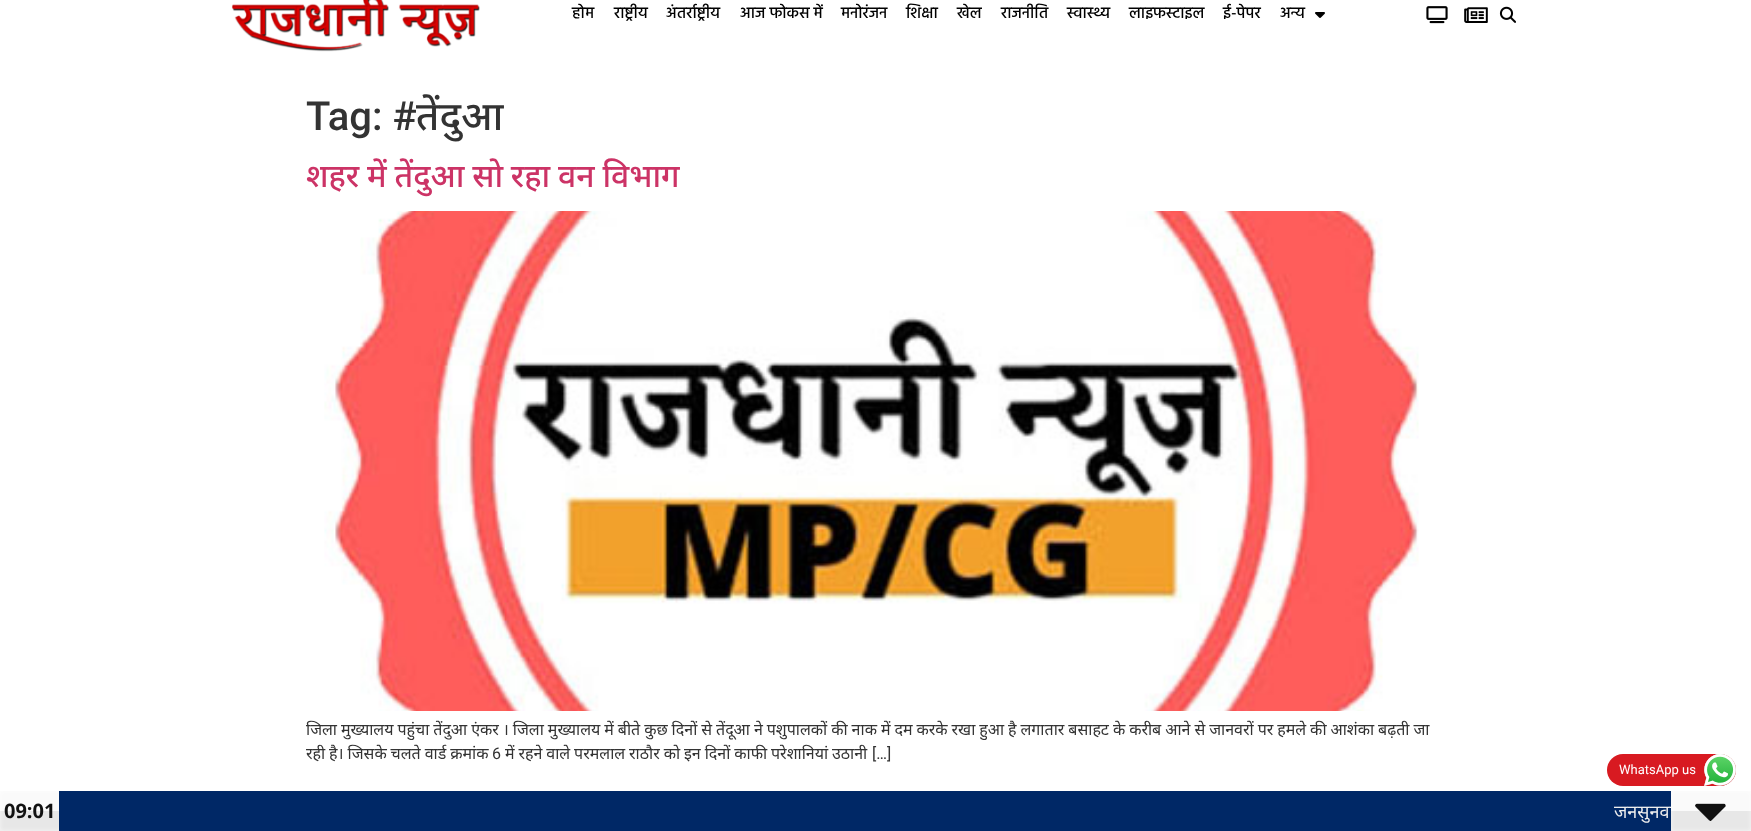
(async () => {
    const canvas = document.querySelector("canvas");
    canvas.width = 1751;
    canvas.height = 831;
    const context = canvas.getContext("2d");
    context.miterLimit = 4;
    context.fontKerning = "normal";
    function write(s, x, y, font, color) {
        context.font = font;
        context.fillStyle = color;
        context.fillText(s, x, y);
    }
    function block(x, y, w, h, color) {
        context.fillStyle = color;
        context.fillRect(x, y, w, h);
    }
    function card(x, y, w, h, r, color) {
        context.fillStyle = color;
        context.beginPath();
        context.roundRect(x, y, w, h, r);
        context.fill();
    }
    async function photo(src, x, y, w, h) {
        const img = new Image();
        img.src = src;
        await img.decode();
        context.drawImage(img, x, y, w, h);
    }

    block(0, 0, 1751, 831, "rgb(255, 255, 255)");
    await photo("media/1.png", 231, 0, 249, 52);
    write("होम", 572, 18, "500 16px Hind", "rgb(0, 0, 0)");
    write("राष्ट्रीय", 614, 18, "500 16px Hind", "rgb(0, 0, 0)");
    write("अंतर्राष्ट्रीय", 666, 18, "500 16px Hind", "rgb(0, 0, 0)");
    write("आज फोकस में", 740, 18, "500 16px Hind", "rgb(0, 0, 0)");
    write("मनोरंजन", 841, 18, "500 16px Hind", "rgb(0, 0, 0)");
    write("शिक्षा", 906, 18, "500 16px Hind", "rgb(0, 0, 0)");
    write("खेल", 957, 18, "500 16px Hind", "rgb(0, 0, 0)");
    write("राजनीति", 1001, 18, "500 16px Hind", "rgb(0, 0, 0)");
    write("स्वास्थ्य", 1067, 18, "500 16px Hind", "rgb(0, 0, 0)");
    write("लाइफस्टाइल", 1129, 18, "500 16px Hind", "rgb(0, 0, 0)");
    write("ई-पेपर", 1223, 18, "500 16px Hind", "rgb(0, 0, 0)");
    write("अन्य", 1280, 18, "500 16px Hind", "rgb(0, 0, 0)");
    await photo("media/2.png", 1315, 12, 10, 6);
    await photo("media/3.png", 1426, 6, 22, 18);
    await photo("media/4.png", 1464, 7, 24, 16);
    await photo("media/5.png", 1499, 6, 17, 17);
    write("Tag: #", 306, 130, "500 40px Roboto", "rgb(51, 51, 51)");
    write("तेंदुआ", 416, 130, "500 40px Noto Sans", "rgb(51, 51, 51)");
    context.wordSpacing = "-0.5px";
    write("शहर में तेंदुआ सो रहा वन विभाग", 306, 187, "500 32px Noto Sans", "rgb(204, 51, 102)");
    await photo("media/6.png", 324, 211, 1095, 500);
    context.wordSpacing = "-0.2px";
    write("जिला मुख्यालय पहुंचा तेंदुआ एंकर । जिला मुख्यालय में बीते कुछ दिनों से तेंदूआ ने पशुपालकों की नाक में दम करके रखा हुआ है लगातार बसाहट के करीब आने से जानवरों पर हमले की आशंका बढ़ती जा", 306, 735, "16px Noto Sans", "rgb(51, 51, 51)");
    context.wordSpacing = "-0.25px";
    write("रही है। जिसके चलते वार्ड क्रमांक", 306, 759, "16px Noto Sans", "rgb(51, 51, 51)");
    context.wordSpacing = "0px";
    write("6", 492, 759, "16px Roboto", "rgb(51, 51, 51)");
    context.wordSpacing = "-0.25px";
    write("में रहने वाले परमलाल राठौर को इन दिनों काफी परेशानियां उठानी", 505, 759, "16px Noto Sans", "rgb(51, 51, 51)");
    context.wordSpacing = "0px";
    write("[…]", 872, 759, "16px Roboto", "rgb(51, 51, 51)");
    card(1607, 754, 129, 32, 16, "rgb(216, 26, 33)");
    write("WhatsApp us", 1619, 774, "13px Roboto", "rgb(255, 255, 255)");
    await photo("media/7.png", 1704, 754, 32, 32);
    await photo("media/8.png", 0, 791, 59, 40);
    write("09:01", 4, 818, "bold 20px Open Sans", "rgb(17, 17, 17)");
    block(59, 791, 1612, 40, "rgb(0, 40, 102)");
    write("जनसुनवा", 1614, 818, "18px Noto Sans", "rgb(238, 238, 238)");
    await photo("media/9.png", 1671, 791, 80, 40);
})();
